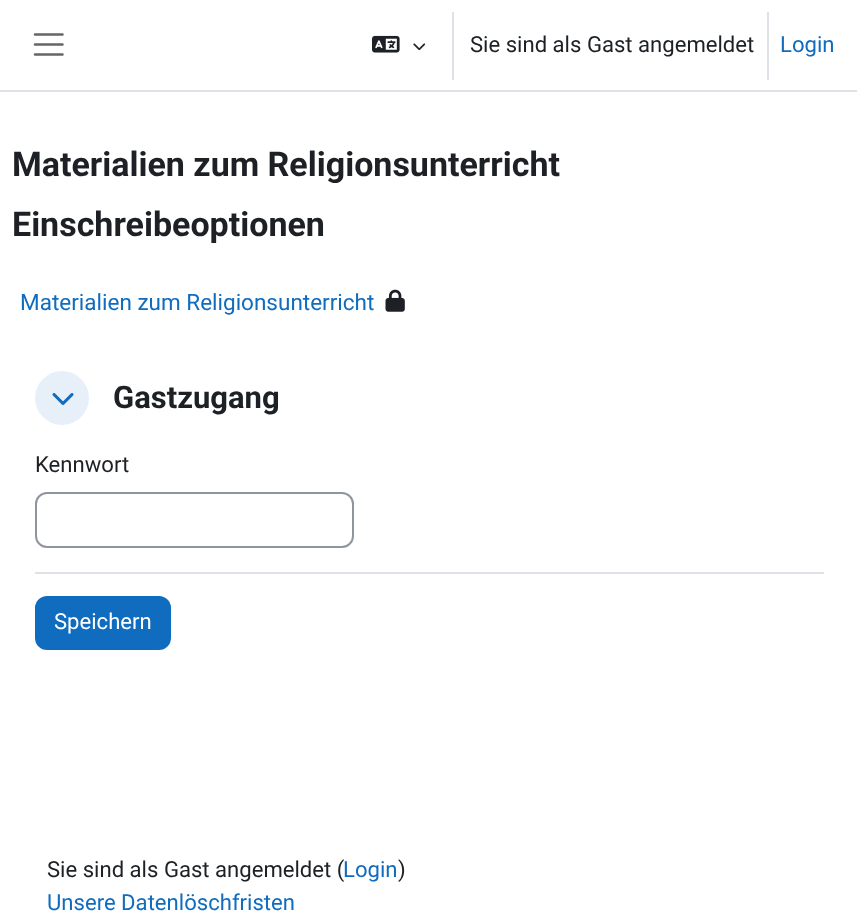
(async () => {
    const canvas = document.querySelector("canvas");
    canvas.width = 857;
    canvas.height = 913;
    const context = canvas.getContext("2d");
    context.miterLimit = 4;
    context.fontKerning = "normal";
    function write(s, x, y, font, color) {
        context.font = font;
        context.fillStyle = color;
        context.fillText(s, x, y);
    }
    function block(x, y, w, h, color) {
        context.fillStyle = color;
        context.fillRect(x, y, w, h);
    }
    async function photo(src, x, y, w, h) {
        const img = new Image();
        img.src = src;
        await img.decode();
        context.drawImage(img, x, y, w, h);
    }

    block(0, 0, 857, 913, "rgb(255, 255, 255)");
    block(0, 90, 857, 2, "rgb(222, 226, 230)");
    context.beginPath();
    context.moveTo(35, 34.5);
    context.lineTo(62.5, 34.5);
    context.moveTo(35, 44.5);
    context.lineTo(62.5, 44.5);
    context.moveTo(35, 54.5);
    context.lineTo(62.5, 54.5);
    context.strokeStyle = "rgb(102, 102, 102)";
    context.lineWidth = 2.5;
    context.lineCap = "round";
    context.stroke();
    await photo("media/1.png", 372, 35, 28, 18);
    await photo("media/2.png", 413, 43, 13, 8);
    block(452, 12, 2, 68, "rgb(222, 226, 230)");
    write("Sie sind als Gast angemeldet", 470, 52, "22.1px Roboto", "rgb(29, 33, 37)");
    block(767, 12, 2, 68, "rgb(222, 226, 230)");
    write("Login", 780, 52, "22.1px Roboto", "rgb(15, 108, 191)");
    write("Materialien zum Religionsunterricht", 12, 176, "bold 34px Roboto", "rgb(29, 33, 37)");
    write("Einschreibeoptionen", 12, 236, "bold 34px Roboto", "rgb(29, 33, 37)");
    write("Materialien zum Religionsunterricht", 20, 310, "22.5px Roboto", "rgb(15, 108, 191)");
    await photo("media/3.png", 385, 289, 20, 23);
    block(35, 572, 789, 2, "rgb(222, 226, 230)");
    context.fillStyle = "rgb(231, 240, 249)";
    context.beginPath();
    context.arc(62, 398, 27, 0, Math.PI * 2);
    context.fill();
    await photo("media/4.png", 52, 393, 22, 12);
    write("Gastzugang", 113, 408, "bold 31px Roboto", "rgb(29, 33, 37)");
    write("Kennwort", 35, 472, "22.1px Roboto", "rgb(29, 33, 37)");
    context.beginPath();
    context.roundRect(36, 493, 317, 54, 11);
    context.strokeStyle = "rgb(143, 149, 158)";
    context.lineWidth = 2;
    context.stroke();
    context.fillStyle = "rgb(15, 108, 191)";
    context.beginPath();
    context.roundRect(36, 597, 134, 52, 11);
    context.fill();
    context.strokeStyle = "rgb(15, 108, 191)";
    context.stroke();
    write("Speichern", 54, 629, "22.1px Roboto", "rgb(255, 255, 255)");
    write("Sie sind als Gast angemeldet (", 47, 877, "22.1px Roboto", "rgb(29, 33, 37)");
    write("Login", 343, 877, "22.1px Roboto", "rgb(15, 108, 191)");
    write(")", 398, 877, "22.1px Roboto", "rgb(29, 33, 37)");
    write("Unsere Datenlöschfristen", 47, 910, "22.1px Roboto", "rgb(15, 108, 191)");
})();
